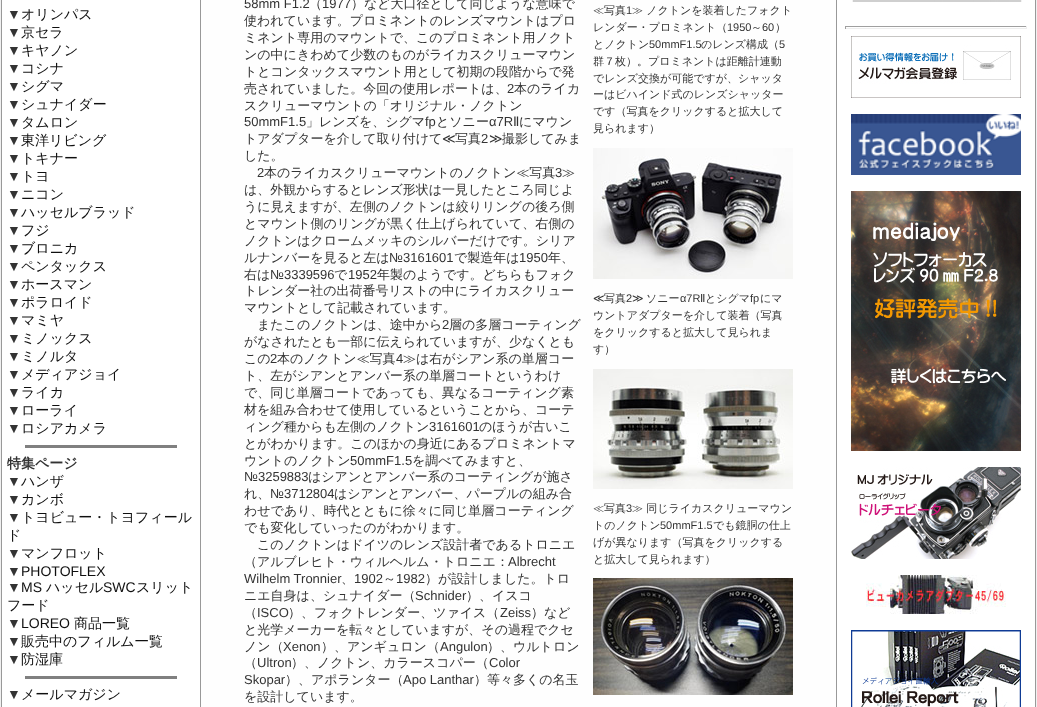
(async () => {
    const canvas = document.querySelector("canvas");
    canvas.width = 1037;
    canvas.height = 707;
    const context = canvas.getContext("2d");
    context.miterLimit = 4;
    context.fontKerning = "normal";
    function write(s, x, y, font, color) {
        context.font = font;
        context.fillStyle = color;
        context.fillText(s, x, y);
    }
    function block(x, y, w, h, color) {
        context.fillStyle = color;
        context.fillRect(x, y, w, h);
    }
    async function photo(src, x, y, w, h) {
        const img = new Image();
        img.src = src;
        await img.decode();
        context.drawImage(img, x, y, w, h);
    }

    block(0, 0, 1037, 707, "rgb(240, 240, 240)");
    block(201, 0, 635, 707, "rgb(254, 254, 254)");
    block(1, 0, 200, 707, "rgb(153, 153, 153)");
    block(2, 0, 198, 707, "rgb(255, 255, 255)");
    write("▼", 7, 19, "14px Liberation Sans", "rgb(51, 51, 51)");
    write("オリンパス", 21, 19, "500 14px WenQuanYi Zen Hei", "rgb(15, 15, 15)");
    write("▼", 7, 37, "14px Liberation Sans", "rgb(51, 51, 51)");
    write("京セラ", 21, 37, "500 14px WenQuanYi Zen Hei", "rgb(15, 15, 15)");
    write("▼", 7, 55, "14px Liberation Sans", "rgb(51, 51, 51)");
    write("キヤノン", 21, 55, "500 14px WenQuanYi Zen Hei", "rgb(15, 15, 15)");
    write("▼", 7, 73, "14px Liberation Sans", "rgb(51, 51, 51)");
    write("コシナ", 21, 73, "500 14px WenQuanYi Zen Hei", "rgb(15, 15, 15)");
    write("▼", 7, 91, "14px Liberation Sans", "rgb(51, 51, 51)");
    write("シグマ", 21, 91, "500 14px WenQuanYi Zen Hei", "rgb(15, 15, 15)");
    write("▼", 7, 109, "14px Liberation Sans", "rgb(51, 51, 51)");
    write("シュナイダー", 21, 109, "500 14px WenQuanYi Zen Hei", "rgb(15, 15, 15)");
    write("▼", 7, 127, "14px Liberation Sans", "rgb(51, 51, 51)");
    write("タムロン", 21, 127, "500 14px WenQuanYi Zen Hei", "rgb(15, 15, 15)");
    write("▼", 7, 145, "14px Liberation Sans", "rgb(51, 51, 51)");
    write("東洋リビング", 21, 145, "500 14px WenQuanYi Zen Hei", "rgb(15, 15, 15)");
    write("▼", 7, 163, "14px Liberation Sans", "rgb(51, 51, 51)");
    write("トキナー", 21, 163, "500 14px WenQuanYi Zen Hei", "rgb(15, 15, 15)");
    write("▼", 7, 181, "14px Liberation Sans", "rgb(51, 51, 51)");
    write("トヨ", 21, 181, "500 14px WenQuanYi Zen Hei", "rgb(15, 15, 15)");
    write("▼", 7, 199, "14px Liberation Sans", "rgb(51, 51, 51)");
    write("ニコン", 21, 199, "500 14px WenQuanYi Zen Hei", "rgb(15, 15, 15)");
    write("▼", 7, 217, "14px Liberation Sans", "rgb(51, 51, 51)");
    write("ハッセルブラッド", 21, 217, "500 14px WenQuanYi Zen Hei", "rgb(15, 15, 15)");
    write("▼", 7, 235, "14px Liberation Sans", "rgb(51, 51, 51)");
    write("フジ", 21, 235, "500 14px WenQuanYi Zen Hei", "rgb(15, 15, 15)");
    write("▼", 7, 253, "14px Liberation Sans", "rgb(51, 51, 51)");
    write("ブロニカ", 21, 253, "500 14px WenQuanYi Zen Hei", "rgb(15, 15, 15)");
    write("▼", 7, 271, "14px Liberation Sans", "rgb(51, 51, 51)");
    write("ペンタックス", 21, 271, "500 14px WenQuanYi Zen Hei", "rgb(15, 15, 15)");
    write("▼", 7, 289, "14px Liberation Sans", "rgb(51, 51, 51)");
    write("ホースマン", 21, 289, "500 14px WenQuanYi Zen Hei", "rgb(15, 15, 15)");
    write("▼", 7, 307, "14px Liberation Sans", "rgb(51, 51, 51)");
    write("ポラロイド", 21, 307, "500 14px WenQuanYi Zen Hei", "rgb(15, 15, 15)");
    write("▼", 7, 325, "14px Liberation Sans", "rgb(51, 51, 51)");
    write("マミヤ", 21, 325, "500 14px WenQuanYi Zen Hei", "rgb(15, 15, 15)");
    write("▼", 7, 343, "14px Liberation Sans", "rgb(51, 51, 51)");
    write("ミノックス", 21, 343, "500 14px WenQuanYi Zen Hei", "rgb(15, 15, 15)");
    write("▼", 7, 361, "14px Liberation Sans", "rgb(51, 51, 51)");
    write("ミノルタ", 21, 361, "500 14px WenQuanYi Zen Hei", "rgb(15, 15, 15)");
    write("▼", 7, 379, "14px Liberation Sans", "rgb(51, 51, 51)");
    write("メディアジョイ", 21, 379, "500 14px WenQuanYi Zen Hei", "rgb(15, 15, 15)");
    write("▼", 7, 397, "14px Liberation Sans", "rgb(51, 51, 51)");
    write("ライカ", 21, 397, "500 14px WenQuanYi Zen Hei", "rgb(15, 15, 15)");
    write("▼", 7, 415, "14px Liberation Sans", "rgb(51, 51, 51)");
    write("ローライ", 21, 415, "500 14px WenQuanYi Zen Hei", "rgb(15, 15, 15)");
    write("▼", 7, 433, "14px Liberation Sans", "rgb(51, 51, 51)");
    write("ロシアカメラ", 21, 433, "500 14px WenQuanYi Zen Hei", "rgb(15, 15, 15)");
    block(25, 445, 152, 3, "rgb(128, 128, 128)");
    write("特集ページ", 7, 468, "bold 14px WenQuanYi Zen Hei", "rgb(51, 51, 51)");
    write("▼", 7, 486, "14px Liberation Sans", "rgb(51, 51, 51)");
    write("ハンザ", 21, 486, "500 14px WenQuanYi Zen Hei", "rgb(15, 15, 15)");
    write("▼", 7, 504, "14px Liberation Sans", "rgb(51, 51, 51)");
    write("カンボ", 21, 504, "500 14px WenQuanYi Zen Hei", "rgb(15, 15, 15)");
    write("▼", 7, 522, "14px Liberation Sans", "rgb(51, 51, 51)");
    write("トヨビュー・トヨフィール", 21, 522, "500 14px WenQuanYi Zen Hei", "rgb(15, 15, 15)");
    write("ド", 7, 540, "500 14px WenQuanYi Zen Hei", "rgb(15, 15, 15)");
    write("▼", 7, 558, "14px Liberation Sans", "rgb(51, 51, 51)");
    write("マンフロット", 21, 558, "500 14px WenQuanYi Zen Hei", "rgb(15, 15, 15)");
    write("▼", 7, 576, "14px Liberation Sans", "rgb(51, 51, 51)");
    write("PHOTOFLEX", 21, 576, "14px Liberation Sans", "rgb(15, 15, 15)");
    write("▼", 7, 592, "14px Liberation Sans", "rgb(51, 51, 51)");
    write("MS", 21, 592, "14px Liberation Sans", "rgb(15, 15, 15)");
    write("ハッセル", 46, 592, "500 14px WenQuanYi Zen Hei", "rgb(15, 15, 15)");
    write("SWC", 103, 592, "14px Liberation Sans", "rgb(15, 15, 15)");
    write("スリット", 136, 592, "500 14px WenQuanYi Zen Hei", "rgb(15, 15, 15)");
    write("フード", 7, 610, "500 14px WenQuanYi Zen Hei", "rgb(15, 15, 15)");
    write("▼", 7, 628, "14px Liberation Sans", "rgb(51, 51, 51)");
    write("LOREO", 21, 628, "14px Liberation Sans", "rgb(15, 15, 15)");
    write("商品一覧", 74, 628, "500 14px WenQuanYi Zen Hei", "rgb(15, 15, 15)");
    write("▼", 7, 646, "14px Liberation Sans", "rgb(51, 51, 51)");
    write("販売中のフィルム一覧", 21, 646, "500 14px WenQuanYi Zen Hei", "rgb(15, 15, 15)");
    write("▼", 7, 664, "14px Liberation Sans", "rgb(51, 51, 51)");
    write("防湿庫", 21, 664, "500 14px WenQuanYi Zen Hei", "rgb(15, 15, 15)");
    block(25, 676, 152, 3, "rgb(128, 128, 128)");
    write("▼", 7, 699, "14px Liberation Sans", "rgb(51, 51, 51)");
    write("メールマガジン", 21, 699, "500 14px WenQuanYi Zen Hei", "rgb(15, 15, 15)");
    write("58mm F1.2", 244, 8, "13px Liberation Sans", "rgb(51, 51, 51)");
    write("（", 309, 8, "500 13px WenQuanYi Zen Hei", "rgb(51, 51, 51)");
    write("1977", 322, 8, "13px Liberation Sans", "rgb(51, 51, 51)");
    write("）など大口径として同じような意味で", 351, 8, "500 13px WenQuanYi Zen Hei", "rgb(51, 51, 51)");
    write("≪写真", 593, 14, "500 11px WenQuanYi Zen Hei", "rgb(51, 51, 51)");
    write("1", 626, 14, "11px Liberation Sans", "rgb(51, 51, 51)");
    write("≫ ノクトンを装着したフォクト", 632, 14, "500 11px WenQuanYi Zen Hei", "rgb(51, 51, 51)");
    write("レンダー・プロミネント（", 593, 31, "500 11px WenQuanYi Zen Hei", "rgb(51, 51, 51)");
    write("1950", 727, 31, "11px Liberation Sans", "rgb(51, 51, 51)");
    write("～", 751, 31, "500 11px WenQuanYi Zen Hei", "rgb(51, 51, 51)");
    write("60", 762, 31, "11px Liberation Sans", "rgb(51, 51, 51)");
    write("）", 775, 31, "500 11px WenQuanYi Zen Hei", "rgb(51, 51, 51)");
    write("とノクトン", 593, 48, "500 11px WenQuanYi Zen Hei", "rgb(51, 51, 51)");
    write("50mmF1.5", 649, 48, "11px Liberation Sans", "rgb(51, 51, 51)");
    write("のレンズ構成（", 701, 48, "500 11px WenQuanYi Zen Hei", "rgb(51, 51, 51)");
    write("5", 779, 48, "11px Liberation Sans", "rgb(51, 51, 51)");
    write("群７枚）。プロミネントは距離計連動", 593, 65, "500 11px WenQuanYi Zen Hei", "rgb(51, 51, 51)");
    write("でレンズ交換が可能ですが、シャッタ", 593, 82, "500 11px WenQuanYi Zen Hei", "rgb(51, 51, 51)");
    write("ーはビハインド式のレンズシャッター", 593, 98, "500 11px WenQuanYi Zen Hei", "rgb(51, 51, 51)");
    write("です（写真をクリックすると拡大して", 593, 115, "500 11px WenQuanYi Zen Hei", "rgb(51, 51, 51)");
    write("見られます）", 593, 132, "500 11px WenQuanYi Zen Hei", "rgb(51, 51, 51)");
    await photo("media/1.png", 593, 148, 200, 131);
    write("≪", 593, 302, "11px DejaVu Sans", "rgb(51, 51, 51)");
    write("写真", 604, 302, "500 11px WenQuanYi Zen Hei", "rgb(51, 51, 51)");
    write("2", 626, 302, "11px Liberation Sans", "rgb(51, 51, 51)");
    write("≫", 632, 302, "11px DejaVu Sans", "rgb(51, 51, 51)");
    write("ソニー", 646, 302, "500 11px WenQuanYi Zen Hei", "rgb(51, 51, 51)");
    write("α7R", 680, 302, "11px Liberation Sans", "rgb(51, 51, 51)");
    write("Ⅱ", 700, 302, "11px DejaVu Sans", "rgb(51, 51, 51)");
    write("とシグマ", 705, 302, "500 11px WenQuanYi Zen Hei", "rgb(51, 51, 51)");
    write("fp", 750, 302, "11px Liberation Sans", "rgb(51, 51, 51)");
    write("にマ", 760, 302, "500 11px WenQuanYi Zen Hei", "rgb(51, 51, 51)");
    write("ウントアダプターを介して装着（写真", 593, 319, "500 11px WenQuanYi Zen Hei", "rgb(51, 51, 51)");
    write("をクリックすると拡大して見られま", 593, 336, "500 11px WenQuanYi Zen Hei", "rgb(51, 51, 51)");
    write("す）", 593, 353, "500 11px WenQuanYi Zen Hei", "rgb(51, 51, 51)");
    await photo("media/2.png", 593, 369, 200, 120);
    write("≪写真", 593, 512, "500 11px WenQuanYi Zen Hei", "rgb(51, 51, 51)");
    write("3", 626, 512, "11px Liberation Sans", "rgb(51, 51, 51)");
    write("≫ 同じライカスクリューマウン", 632, 512, "500 11px WenQuanYi Zen Hei", "rgb(51, 51, 51)");
    write("トのノクトン", 593, 529, "500 11px WenQuanYi Zen Hei", "rgb(51, 51, 51)");
    write("50mmF1.5", 660, 529, "11px Liberation Sans", "rgb(51, 51, 51)");
    write("でも鏡胴の仕上", 713, 529, "500 11px WenQuanYi Zen Hei", "rgb(51, 51, 51)");
    write("げが異なります（写真をクリックする", 593, 546, "500 11px WenQuanYi Zen Hei", "rgb(51, 51, 51)");
    write("と拡大して見られます）", 593, 563, "500 11px WenQuanYi Zen Hei", "rgb(51, 51, 51)");
    await photo("media/3.png", 593, 578, 200, 117);
    write("使われています。プロミネントのレンズマウントはプロ", 244, 25, "500 13px WenQuanYi Zen Hei", "rgb(51, 51, 51)");
    write("ミネント専用のマウントで、このプロミネント用ノクト", 244, 42, "500 13px WenQuanYi Zen Hei", "rgb(51, 51, 51)");
    write("ンの中にきわめて少数のものがライカスクリューマウン", 244, 59, "500 13px WenQuanYi Zen Hei", "rgb(51, 51, 51)");
    write("トとコンタックスマウント用として初期の段階からで発", 244, 76, "500 13px WenQuanYi Zen Hei", "rgb(51, 51, 51)");
    write("売されていました。今回の使用レポートは、", 244, 93, "500 13px WenQuanYi Zen Hei", "rgb(51, 51, 51)");
    write("2", 507, 93, "13px Liberation Sans", "rgb(51, 51, 51)");
    write("本のライカ", 514, 93, "500 13px WenQuanYi Zen Hei", "rgb(51, 51, 51)");
    write("スクリューマウントの「オリジナル・ノクトン", 244, 110, "500 13px WenQuanYi Zen Hei", "rgb(51, 51, 51)");
    write("50mmF1.5", 244, 126, "13px Liberation Sans", "rgb(51, 51, 51)");
    write("」レンズを、シグマ", 306, 126, "500 13px WenQuanYi Zen Hei", "rgb(51, 51, 51)");
    write("fp", 425, 126, "13px Liberation Sans", "rgb(51, 51, 51)");
    write("とソニー", 436, 126, "500 13px WenQuanYi Zen Hei", "rgb(51, 51, 51)");
    write("α7R", 489, 126, "13px Liberation Sans", "rgb(51, 51, 51)");
    write("Ⅱ", 513, 126, "13px DejaVu Sans", "rgb(51, 51, 51)");
    write("にマウン", 519, 126, "500 13px WenQuanYi Zen Hei", "rgb(51, 51, 51)");
    write("トアダプターを介して取り付けて", 244, 143, "500 13px WenQuanYi Zen Hei", "rgb(51, 51, 51)");
    write("≪", 442, 143, "13px DejaVu Sans", "rgb(51, 51, 51)");
    write("写真", 455, 143, "500 13px WenQuanYi Zen Hei", "rgb(51, 51, 51)");
    write("2", 481, 143, "13px Liberation Sans", "rgb(51, 51, 51)");
    write("≫", 489, 143, "13px DejaVu Sans", "rgb(51, 51, 51)");
    write("撮影してみま", 502, 143, "500 13px WenQuanYi Zen Hei", "rgb(51, 51, 51)");
    write("した。", 244, 160, "500 13px WenQuanYi Zen Hei", "rgb(51, 51, 51)");
    write("2", 257, 177, "13px Liberation Sans", "rgb(51, 51, 51)");
    write("本のライカスクリューマウントのノクトン≪写真", 264, 177, "500 13px WenQuanYi Zen Hei", "rgb(51, 51, 51)");
    write("3", 555, 177, "13px Liberation Sans", "rgb(51, 51, 51)");
    write("≫", 562, 177, "500 13px WenQuanYi Zen Hei", "rgb(51, 51, 51)");
    write("は、外観からするとレンズ形状は一見したところ同じよ", 244, 194, "500 13px WenQuanYi Zen Hei", "rgb(51, 51, 51)");
    write("うに見えますが、左側のノクトンは絞りリングの後ろ側", 244, 211, "500 13px WenQuanYi Zen Hei", "rgb(51, 51, 51)");
    write("とマウント側のリングが黒く仕上げられていて、右側の", 244, 228, "500 13px WenQuanYi Zen Hei", "rgb(51, 51, 51)");
    write("ノクトンはクロームメッキのシルバーだけです。シリア", 244, 245, "500 13px WenQuanYi Zen Hei", "rgb(51, 51, 51)");
    write("ルナンバーを見ると左は", 244, 262, "500 13px WenQuanYi Zen Hei", "rgb(51, 51, 51)");
    write("№3161601", 389, 262, "13px Liberation Sans", "rgb(51, 51, 51)");
    write("で製造年は", 454, 262, "500 13px WenQuanYi Zen Hei", "rgb(51, 51, 51)");
    write("1950", 519, 262, "13px Liberation Sans", "rgb(51, 51, 51)");
    write("年、", 548, 262, "500 13px WenQuanYi Zen Hei", "rgb(51, 51, 51)");
    write("右は", 244, 279, "500 13px WenQuanYi Zen Hei", "rgb(51, 51, 51)");
    write("№3339596", 270, 279, "13px Liberation Sans", "rgb(51, 51, 51)");
    write("で", 334, 279, "500 13px WenQuanYi Zen Hei", "rgb(51, 51, 51)");
    write("1952", 348, 279, "13px Liberation Sans", "rgb(51, 51, 51)");
    write("年製のようです。どちらもフォク", 377, 279, "500 13px WenQuanYi Zen Hei", "rgb(51, 51, 51)");
    write("トレンダー社の出荷番号リストの中にライカスクリュー", 244, 295, "500 13px WenQuanYi Zen Hei", "rgb(51, 51, 51)");
    write("マウントとして記載されています。", 244, 312, "500 13px WenQuanYi Zen Hei", "rgb(51, 51, 51)");
    write("またこのノクトンは、途中から", 257, 329, "500 13px WenQuanYi Zen Hei", "rgb(51, 51, 51)");
    write("2", 442, 329, "13px Liberation Sans", "rgb(51, 51, 51)");
    write("層の多層コーティング", 449, 329, "500 13px WenQuanYi Zen Hei", "rgb(51, 51, 51)");
    write("がなされたとも一部に伝えられていますが、少なくとも", 244, 346, "500 13px WenQuanYi Zen Hei", "rgb(51, 51, 51)");
    write("この", 244, 363, "500 13px WenQuanYi Zen Hei", "rgb(51, 51, 51)");
    write("2", 270, 363, "13px Liberation Sans", "rgb(51, 51, 51)");
    write("本のノクトン≪写真", 277, 363, "500 13px WenQuanYi Zen Hei", "rgb(51, 51, 51)");
    write("4", 396, 363, "13px Liberation Sans", "rgb(51, 51, 51)");
    write("≫は右がシアン系の単層コー", 403, 363, "500 13px WenQuanYi Zen Hei", "rgb(51, 51, 51)");
    write("ト、左がシアンとアンバー系の単層コートというわけ", 244, 380, "500 13px WenQuanYi Zen Hei", "rgb(51, 51, 51)");
    write("で、同じ単層コートであっても、異なるコーティング素", 244, 397, "500 13px WenQuanYi Zen Hei", "rgb(51, 51, 51)");
    write("材を組み合わせて使用しているということから、コーテ", 244, 414, "500 13px WenQuanYi Zen Hei", "rgb(51, 51, 51)");
    write("ィング種からも左側のノクトン", 244, 431, "500 13px WenQuanYi Zen Hei", "rgb(51, 51, 51)");
    write("3161601", 429, 431, "13px Liberation Sans", "rgb(51, 51, 51)");
    write("のほうが古いこ", 479, 431, "500 13px WenQuanYi Zen Hei", "rgb(51, 51, 51)");
    write("とがわかります。このほかの身近にあるプロミネントマ", 244, 448, "500 13px WenQuanYi Zen Hei", "rgb(51, 51, 51)");
    write("ウントのノクトン", 244, 465, "500 13px WenQuanYi Zen Hei", "rgb(51, 51, 51)");
    write("50mmF1.5", 350, 465, "13px Liberation Sans", "rgb(51, 51, 51)");
    write("を調べてみますと、", 412, 465, "500 13px WenQuanYi Zen Hei", "rgb(51, 51, 51)");
    write("№3259883", 244, 481, "13px Liberation Sans", "rgb(51, 51, 51)");
    write("はシアンとアンバー系のコーティングが施さ", 308, 481, "500 13px WenQuanYi Zen Hei", "rgb(51, 51, 51)");
    write("れ、", 244, 498, "500 13px WenQuanYi Zen Hei", "rgb(51, 51, 51)");
    write("№3712804", 270, 498, "13px Liberation Sans", "rgb(51, 51, 51)");
    write("はシアンとアンバー、パープルの組み合", 334, 498, "500 13px WenQuanYi Zen Hei", "rgb(51, 51, 51)");
    write("わせであり、時代とともに徐々に同じ単層コーティング", 244, 515, "500 13px WenQuanYi Zen Hei", "rgb(51, 51, 51)");
    write("でも変化していったのがわかります。", 244, 532, "500 13px WenQuanYi Zen Hei", "rgb(51, 51, 51)");
    write("このノクトンはドイツのレンズ設計者であるトロニエ", 257, 549, "500 13px WenQuanYi Zen Hei", "rgb(51, 51, 51)");
    write("（アルブレヒト・ウィルヘルム・トロニエ：", 244, 566, "500 13px WenQuanYi Zen Hei", "rgb(51, 51, 51)");
    write("Albrecht", 508, 566, "13px Liberation Sans", "rgb(51, 51, 51)");
    write("Wilhelm Tronnier", 244, 583, "13px Liberation Sans", "rgb(51, 51, 51)");
    write("1902", 354, 583, "13px Liberation Sans", "rgb(51, 51, 51)");
    write("～", 383, 583, "500 13px WenQuanYi Zen Hei", "rgb(51, 51, 51)");
    write("1982", 396, 583, "13px Liberation Sans", "rgb(51, 51, 51)");
    write("）が設計しました。トロ", 425, 583, "500 13px WenQuanYi Zen Hei", "rgb(51, 51, 51)");
    write("、", 341, 583, "500 13px WenQuanYi Zen Hei", "rgb(51, 51, 51)");
    write("ニエ自身は、シュナイダー（", 244, 600, "500 13px WenQuanYi Zen Hei", "rgb(51, 51, 51)");
    write("Schnider", 415, 600, "13px Liberation Sans", "rgb(51, 51, 51)");
    write("）、イスコ", 466, 600, "500 13px WenQuanYi Zen Hei", "rgb(51, 51, 51)");
    write("（", 244, 617, "500 13px WenQuanYi Zen Hei", "rgb(51, 51, 51)");
    write("ISCO", 257, 617, "13px Liberation Sans", "rgb(51, 51, 51)");
    write("）、フォクトレンダー、ツァイス（", 288, 617, "500 13px WenQuanYi Zen Hei", "rgb(51, 51, 51)");
    write("Zeiss", 500, 617, "13px Liberation Sans", "rgb(51, 51, 51)");
    write("）など", 531, 617, "500 13px WenQuanYi Zen Hei", "rgb(51, 51, 51)");
    write("と光学メーカーを転々としていますが、その過程でクセ", 244, 634, "500 13px WenQuanYi Zen Hei", "rgb(51, 51, 51)");
    write("ノン（", 244, 651, "500 13px WenQuanYi Zen Hei", "rgb(51, 51, 51)");
    write("Xenon", 283, 651, "13px Liberation Sans", "rgb(51, 51, 51)");
    write("）、アンギュロン（", 321, 651, "500 13px WenQuanYi Zen Hei", "rgb(51, 51, 51)");
    write("Angulon", 440, 651, "13px Liberation Sans", "rgb(51, 51, 51)");
    write("）、ウルトロン", 487, 651, "500 13px WenQuanYi Zen Hei", "rgb(51, 51, 51)");
    write("（", 244, 667, "500 13px WenQuanYi Zen Hei", "rgb(51, 51, 51)");
    write("Ultron", 257, 667, "13px Liberation Sans", "rgb(51, 51, 51)");
    write("）、ノクトン、カラースコパー（", 291, 667, "500 13px WenQuanYi Zen Hei", "rgb(51, 51, 51)");
    write("Color", 489, 667, "13px Liberation Sans", "rgb(51, 51, 51)");
    write("Skopar", 244, 684, "13px Liberation Sans", "rgb(51, 51, 51)");
    write("）、アポランター（", 285, 684, "500 13px WenQuanYi Zen Hei", "rgb(51, 51, 51)");
    write("Apo Lanthar", 403, 684, "13px Liberation Sans", "rgb(51, 51, 51)");
    write("）等々多くの名玉", 474, 684, "500 13px WenQuanYi Zen Hei", "rgb(51, 51, 51)");
    write("を設計しています。", 244, 701, "500 13px WenQuanYi Zen Hei", "rgb(51, 51, 51)");
    block(836, 0, 200, 707, "rgb(153, 153, 153)");
    block(837, 0, 198, 707, "rgb(255, 255, 255)");
    await photo("media/4.png", 852, 0, 170, 2);
    block(845, 26, 182, 1, "rgb(159, 159, 159)");
    block(1026, 26, 1, 3, "rgb(238, 238, 238)");
    block(845, 28, 182, 1, "rgb(238, 238, 238)");
    block(845, 26, 1, 3, "rgb(159, 159, 159)");
    await photo("media/5.png", 851, 36, 170, 62);
    await photo("media/6.png", 851, 114, 170, 61);
    await photo("media/7.png", 851, 191, 170, 260);
    await photo("media/8.png", 851, 467, 170, 92);
    await photo("media/9.png", 866, 575, 140, 39);
    await photo("media/10.png", 851, 630, 170, 77);
})();
